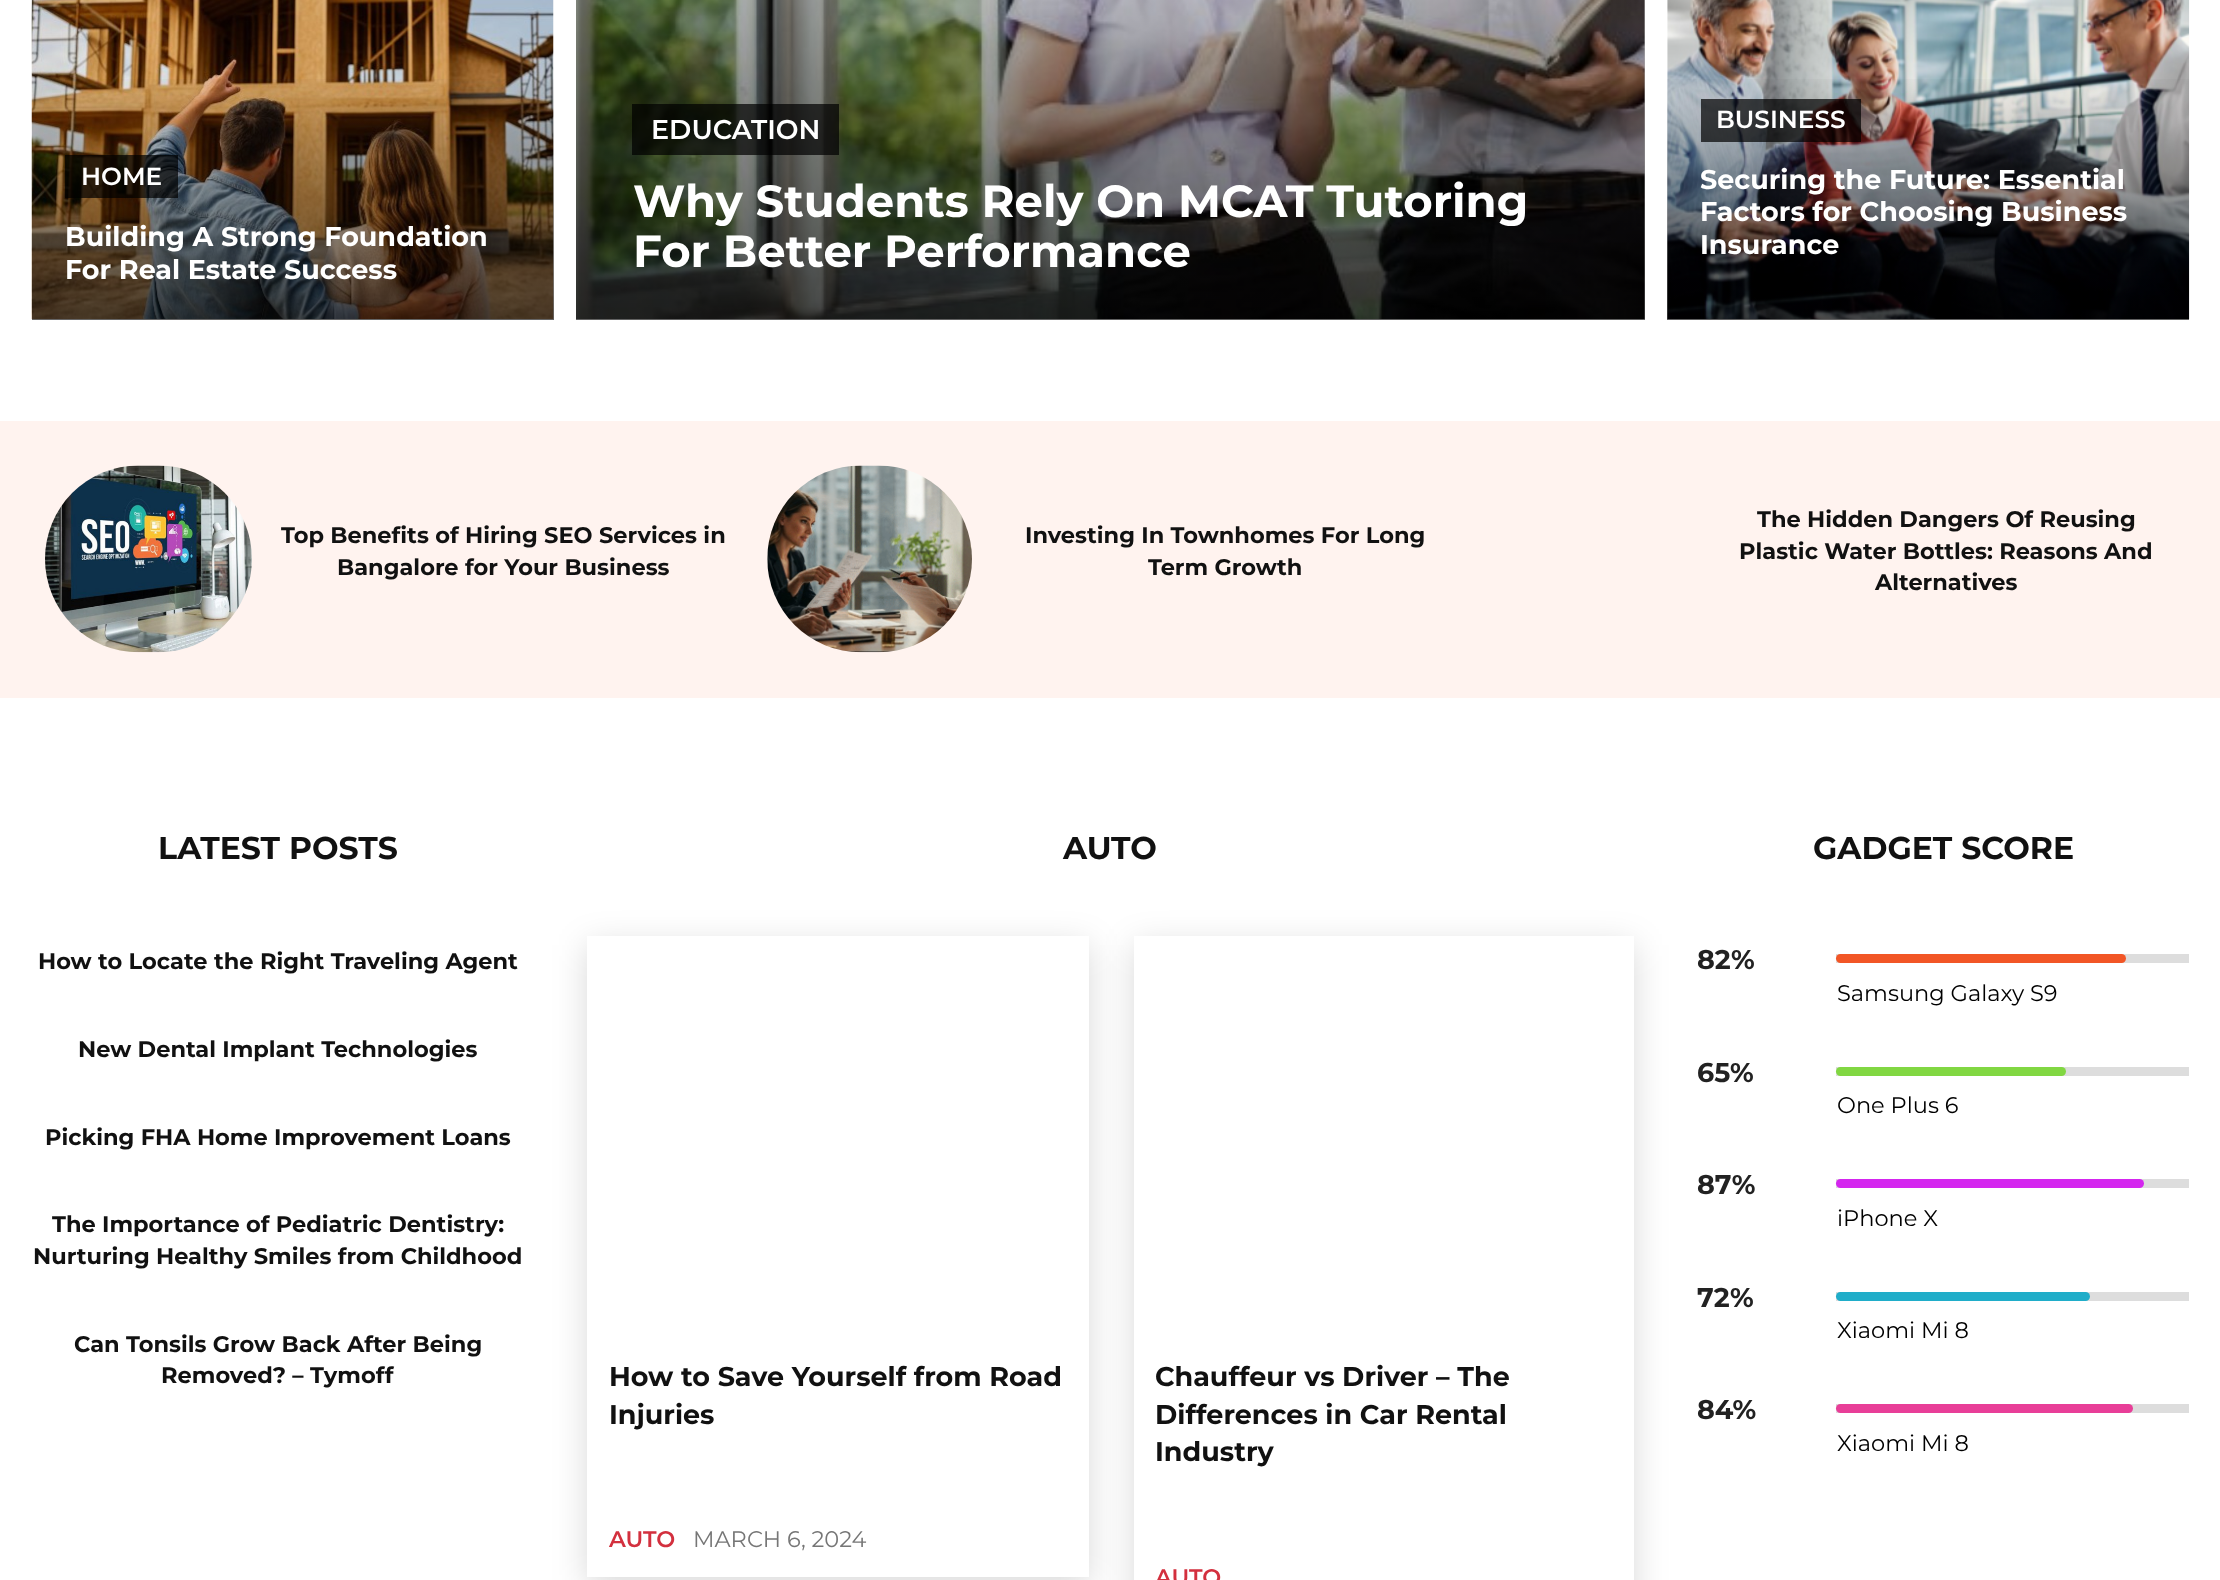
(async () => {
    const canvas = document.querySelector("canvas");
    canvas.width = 2220;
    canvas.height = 1580;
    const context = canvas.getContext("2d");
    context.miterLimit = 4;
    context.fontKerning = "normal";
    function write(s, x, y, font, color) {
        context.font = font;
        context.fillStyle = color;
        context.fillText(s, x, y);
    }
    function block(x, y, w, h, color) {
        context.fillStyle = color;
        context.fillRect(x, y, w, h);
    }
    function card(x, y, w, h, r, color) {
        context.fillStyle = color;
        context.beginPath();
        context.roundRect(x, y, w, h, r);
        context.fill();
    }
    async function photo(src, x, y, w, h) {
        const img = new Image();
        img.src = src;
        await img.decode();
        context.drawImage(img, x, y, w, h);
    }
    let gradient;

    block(0, 0, 2220, 1580, "rgb(255, 255, 255)");
    await photo("media/1.png", 31, 0, 523, 320);
    gradient = context.createLinearGradient(293, -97, 293, 320);
    gradient.addColorStop(0, "rgba(0, 0, 0, 0)");
    gradient.addColorStop(0.4, "rgba(0, 0, 0, 0)");
    gradient.addColorStop(1, "rgba(0, 0, 0, 0.6)");
    context.fillStyle = gradient;
    context.fillRect(32, 79, 522, 241);
    block(65, 155, 113, 43, "rgba(0, 0, 0, 0.7)");
    write("HOME", 81, 185, "600 24.75px Montserrat", "rgb(255, 255, 255)");
    write("Building A Strong Foundation", 65, 246, "bold 27px Montserrat", "rgb(255, 255, 255)");
    write("For Real Estate Success", 65, 279, "bold 27px Montserrat", "rgb(255, 255, 255)");
    await photo("media/2.png", 576, 0, 1069, 320);
    gradient = context.createLinearGradient(1110, -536, 1110, 320);
    gradient.addColorStop(0, "rgba(0, 0, 0, 0)");
    gradient.addColorStop(0.4, "rgba(0, 0, 0, 0)");
    gradient.addColorStop(1, "rgba(0, 0, 0, 0.6)");
    context.fillStyle = gradient;
    context.fillRect(576, 0, 1069, 320);
    block(632, 104, 207, 51, "rgba(0, 0, 0, 0.7)");
    write("EDUCATION", 651, 139, "600 27px Montserrat", "rgb(255, 255, 255)");
    write("Why Students Rely On MCAT Tutoring", 633, 217, "bold 45px Montserrat", "rgb(255, 255, 255)");
    write("For Better Performance", 633, 267, "bold 45px Montserrat", "rgb(255, 255, 255)");
    await photo("media/3.png", 1667, 0, 523, 320);
    gradient = context.createLinearGradient(1928, -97, 1928, 320);
    gradient.addColorStop(0, "rgba(0, 0, 0, 0)");
    gradient.addColorStop(0.4, "rgba(0, 0, 0, 0)");
    gradient.addColorStop(1, "rgba(0, 0, 0, 0.6)");
    context.fillStyle = gradient;
    context.fillRect(1667, 79, 522, 241);
    block(1701, 99, 160, 43, "rgba(0, 0, 0, 0.7)");
    write("BUSINESS", 1716, 128, "600 24.75px Montserrat", "rgb(255, 255, 255)");
    write("Securing the Future: Essential", 1700, 189, "bold 27px Montserrat", "rgb(255, 255, 255)");
    write("Factors for Choosing Business", 1700, 221, "bold 27px Montserrat", "rgb(255, 255, 255)");
    write("Insurance", 1700, 254, "bold 27px Montserrat", "rgb(255, 255, 255)");
    block(0, 421, 2220, 277, "rgb(255, 243, 239)");
    await photo("media/4.png", 45, 465, 207, 188);
    write("Top Benefits of Hiring SEO Services in", 281, 543, "bold 22.5px Montserrat", "rgb(17, 17, 17)");
    write("Bangalore for Your Business", 337, 575, "bold 22.5px Montserrat", "rgb(17, 17, 17)");
    await photo("media/5.png", 767, 465, 205, 188);
    write("Investing In Townhomes For Long", 1025, 543, "bold 22.5px Montserrat", "rgb(17, 17, 17)");
    write("Term Growth", 1148, 575, "bold 22.5px Montserrat", "rgb(17, 17, 17)");
    write("The Hidden Dangers Of Reusing", 1757, 527, "bold 22.5px Montserrat", "rgb(17, 17, 17)");
    write("Plastic Water Bottles: Reasons And", 1739, 559, "bold 22.5px Montserrat", "rgb(17, 17, 17)");
    write("Alternatives", 1875, 590, "bold 22.5px Montserrat", "rgb(17, 17, 17)");
    write("LATEST POSTS", 158, 859, "bold 31.5px Montserrat", "rgb(17, 17, 17)");
    write("How to Locate the Right Traveling Agent", 38, 969, "bold 22.5px Montserrat", "rgb(17, 17, 17)");
    write("New Dental Implant Technologies", 78, 1057, "bold 22.5px Montserrat", "rgb(17, 17, 17)");
    write("Picking FHA Home Improvement Loans", 45, 1145, "bold 22.5px Montserrat", "rgb(17, 17, 17)");
    write("The Importance of Pediatric Dentistry:", 52, 1232, "bold 22.5px Montserrat", "rgb(17, 17, 17)");
    write("Nurturing Healthy Smiles from Childhood", 33, 1264, "bold 22.5px Montserrat", "rgb(17, 17, 17)");
    write("Can Tonsils Grow Back After Being", 74, 1352, "bold 22.5px Montserrat", "rgb(17, 17, 17)");
    write("Removed? – Tymoff", 161, 1383, "bold 22.5px Montserrat", "rgb(17, 17, 17)");
    write("AUTO", 1063, 859, "bold 31.5px Montserrat", "rgb(17, 17, 17)");
    context.save();
    context.beginPath();
    context.moveTo(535, 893);
    context.lineTo(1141, 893);
    context.lineTo(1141, 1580);
    context.lineTo(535, 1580);
    context.closePath();
    context.moveTo(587, 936);
    context.lineTo(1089, 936);
    context.lineTo(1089, 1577);
    context.lineTo(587, 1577);
    context.closePath();
    context.clip("evenodd");
    context.fillStyle = "rgba(0, 0, 0, 0.15)";
    context.filter = "blur(17px)";
    context.beginPath();
    context.rect(587, 945, 502, 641);
    context.fill();
    context.filter = "none";
    context.restore();
    write("How to Save Yourself from Road", 609, 1386, "bold 27px Montserrat", "rgb(17, 17, 17)");
    write("Injuries", 609, 1424, "bold 27px Montserrat", "rgb(17, 17, 17)");
    write("AUTO", 609, 1547, "600 22.5px Montserrat", "rgb(211, 48, 62)");
    write("MARCH 6, 2024", 693, 1547, "22.5px Montserrat", "rgb(118, 118, 118)");
    context.save();
    context.beginPath();
    context.moveTo(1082, 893);
    context.lineTo(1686, 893);
    context.lineTo(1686, 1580);
    context.lineTo(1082, 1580);
    context.closePath();
    context.moveTo(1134, 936);
    context.lineTo(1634, 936);
    context.lineTo(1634, 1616);
    context.lineTo(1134, 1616);
    context.closePath();
    context.clip("evenodd");
    context.fillStyle = "rgba(0, 0, 0, 0.15)";
    context.filter = "blur(17px)";
    context.beginPath();
    context.rect(1134, 945, 500, 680);
    context.fill();
    context.filter = "none";
    context.restore();
    write("Chauffeur vs Driver – The", 1155, 1386, "bold 27px Montserrat", "rgb(17, 17, 17)");
    write("Differences in Car Rental", 1155, 1424, "bold 27px Montserrat", "rgb(17, 17, 17)");
    write("Industry", 1155, 1461, "bold 27px Montserrat", "rgb(17, 17, 17)");
    write("AUTO", 1155, 1585, "600 22.5px Montserrat", "rgb(211, 48, 62)");
    write("GADGET SCORE", 1813, 859, "bold 31.5px Montserrat", "rgb(17, 17, 17)");
    write("82%", 1697, 969, "bold 27px Montserrat", "rgb(34, 34, 34)");
    block(1836, 954, 353, 9, "rgb(221, 221, 221)");
    card(1836, 954, 290, 9, 4.5, "rgb(242, 86, 38)");
    write("Samsung Galaxy S9", 1837, 1001, "22.5px Montserrat", "rgb(0, 0, 0)");
    write("65%", 1697, 1082, "bold 27px Montserrat", "rgb(34, 34, 34)");
    block(1836, 1067, 353, 9, "rgb(221, 221, 221)");
    card(1836, 1067, 230, 9, 4.5, "rgb(129, 215, 66)");
    write("One Plus 6", 1837, 1113, "22.5px Montserrat", "rgb(0, 0, 0)");
    write("87%", 1697, 1194, "bold 27px Montserrat", "rgb(34, 34, 34)");
    block(1836, 1179, 353, 9, "rgb(221, 221, 221)");
    card(1836, 1179, 308, 9, 4.5, "rgb(212, 38, 239)");
    write("iPhone X", 1837, 1226, "22.5px Montserrat", "rgb(0, 0, 0)");
    write("72%", 1697, 1307, "bold 27px Montserrat", "rgb(34, 34, 34)");
    block(1836, 1292, 353, 9, "rgb(221, 221, 221)");
    card(1836, 1292, 254, 9, 4.5, "rgb(32, 173, 201)");
    write("Xiaomi Mi 8", 1837, 1338, "22.5px Montserrat", "rgb(0, 0, 0)");
    write("84%", 1697, 1419, "bold 27px Montserrat", "rgb(34, 34, 34)");
    block(1836, 1404, 353, 9, "rgb(221, 221, 221)");
    card(1836, 1404, 297, 9, 4.5, "rgb(232, 62, 152)");
    write("Xiaomi Mi 8", 1837, 1451, "22.5px Montserrat", "rgb(0, 0, 0)");
})();
